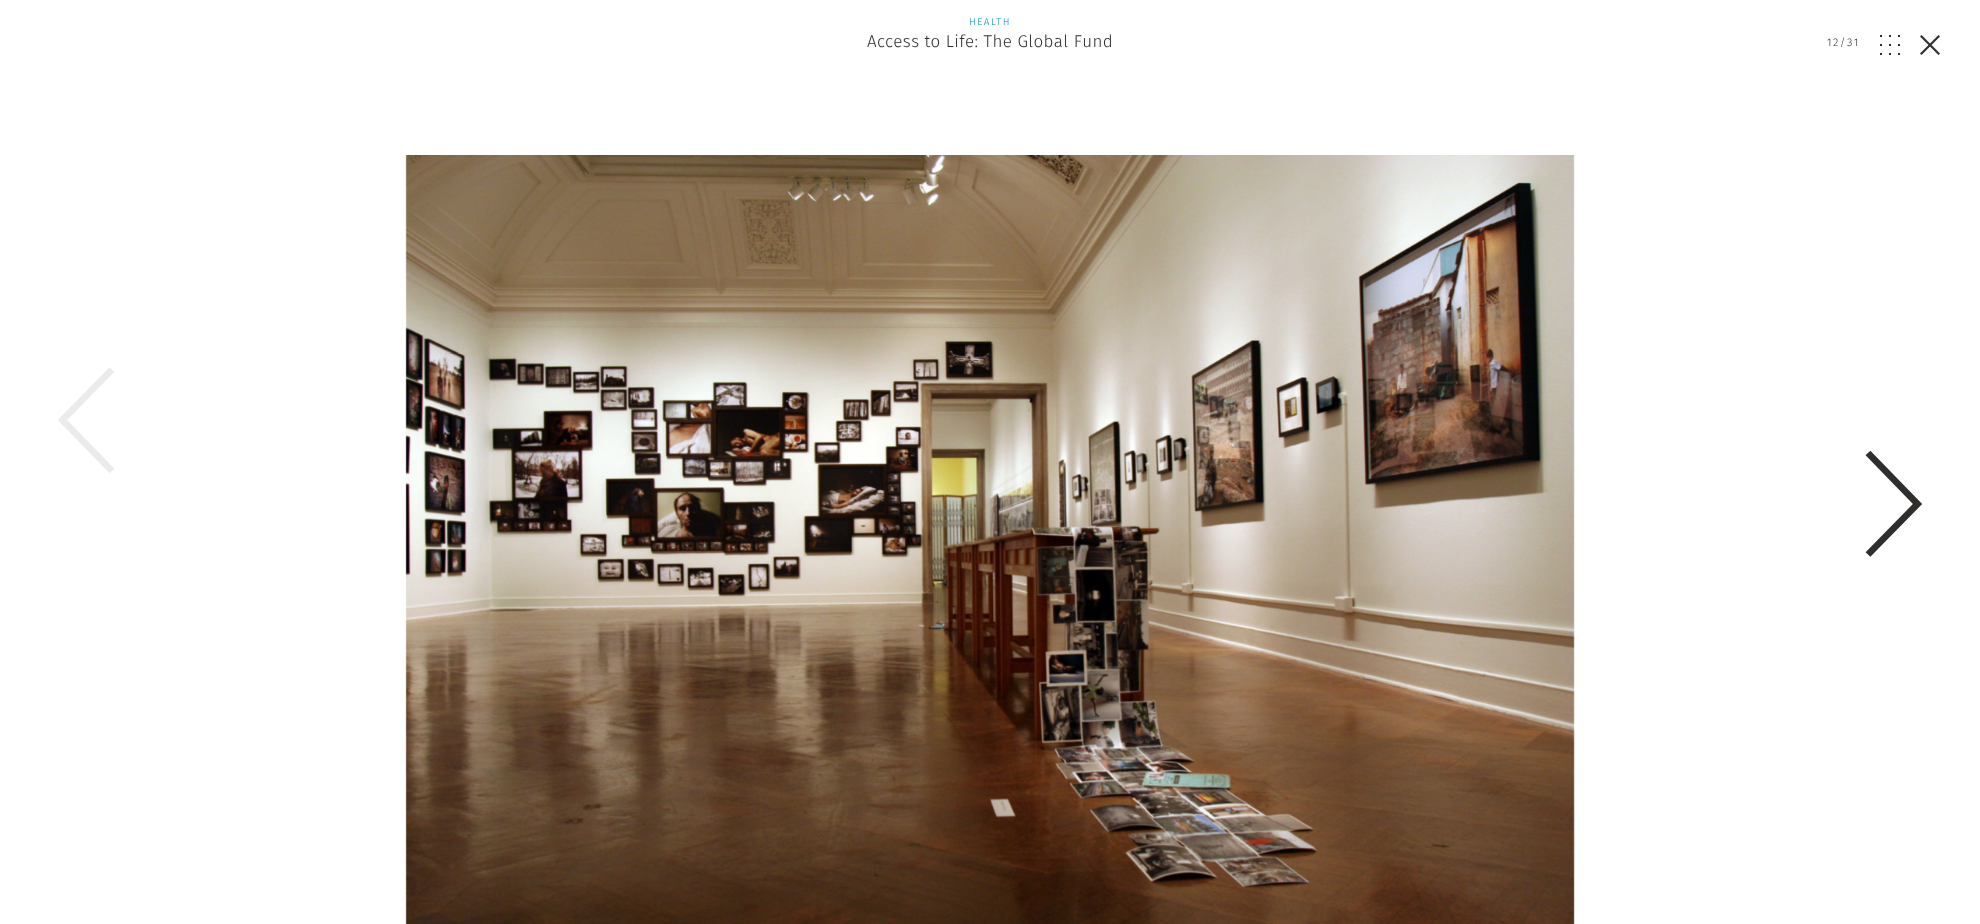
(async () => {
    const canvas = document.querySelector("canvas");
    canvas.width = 1980;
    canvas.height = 924;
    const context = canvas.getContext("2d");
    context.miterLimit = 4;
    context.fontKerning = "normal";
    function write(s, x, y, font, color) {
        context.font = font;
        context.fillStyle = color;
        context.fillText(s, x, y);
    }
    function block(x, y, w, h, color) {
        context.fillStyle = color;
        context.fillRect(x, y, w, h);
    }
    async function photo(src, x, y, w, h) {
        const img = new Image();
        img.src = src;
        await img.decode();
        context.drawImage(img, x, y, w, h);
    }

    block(0, 0, 1980, 924, "rgb(255, 255, 255)");
    context.letterSpacing = "1.5px";
    write("HEALTH", 969, 25, "300 10px Fira Sans", "rgb(0, 140, 202)");
    context.letterSpacing = "0.4px";
    write("Access to Life: The Global Fund", 867, 47, "300 17px Fira Sans", "rgb(48, 45, 45)");
    context.letterSpacing = "1.5px";
    write("12/", 1827, 46, "300 11px Fira Sans", "rgb(48, 45, 45)");
    write("31", 1847, 46, "300 11px Fira Sans", "rgb(48, 45, 45)");
    await photo("media/1.png", 1880, 35, 20, 20);
    context.beginPath();
    context.moveTo(1921.5, 35);
    context.lineTo(1940, 53.5);
    context.lineTo(1938.5, 55);
    context.lineTo(1920, 36.5);
    context.closePath();
    context.fill();
    context.beginPath();
    context.moveTo(1920, 53.5);
    context.lineTo(1938.5, 35);
    context.lineTo(1940, 36.5);
    context.lineTo(1921.5, 55);
    context.closePath();
    context.fill();
    context.beginPath();
    context.moveTo(112, 369.5);
    context.lineTo(62.5, 420);
    context.lineTo(112, 471);
    context.strokeStyle = "rgb(235, 235, 235)";
    context.lineWidth = 6.7;
    context.stroke();
    await photo("media/2.png", 405, 155, 1170, 769);
    context.beginPath();
    context.moveTo(1868, 554.5);
    context.lineTo(1917.5, 504);
    context.lineTo(1868, 453);
    context.strokeStyle = "rgb(48, 45, 45)";
    context.stroke();
})();
